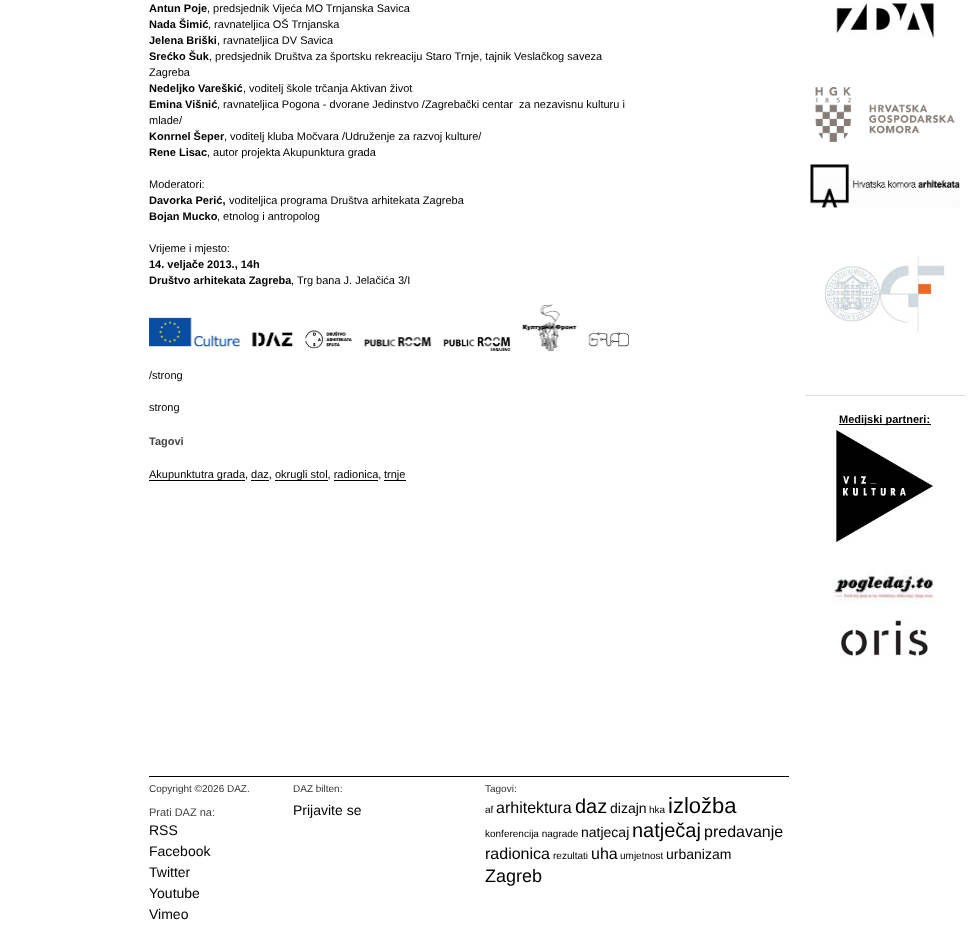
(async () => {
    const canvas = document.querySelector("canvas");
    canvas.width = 970;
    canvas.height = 941;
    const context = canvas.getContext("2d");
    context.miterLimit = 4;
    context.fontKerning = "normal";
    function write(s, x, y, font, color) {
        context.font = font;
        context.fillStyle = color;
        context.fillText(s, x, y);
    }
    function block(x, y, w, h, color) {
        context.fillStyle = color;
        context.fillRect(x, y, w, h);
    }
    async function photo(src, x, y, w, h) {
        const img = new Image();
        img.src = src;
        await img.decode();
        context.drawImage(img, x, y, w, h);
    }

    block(0, 0, 970, 941, "rgb(255, 255, 255)");
    write("Antun Poje", 149, 12, "bold 11px Liberation Sans", "rgb(0, 0, 0)");
    write(", predsjednik Vijeća MO Trnjanska Savica", 207, 12, "11px Liberation Sans", "rgb(0, 0, 0)");
    write("Nada Šimić", 149, 28, "bold 11px Liberation Sans", "rgb(0, 0, 0)");
    write(", ravnateljica OŠ Trnjanska", 208, 28, "11px Liberation Sans", "rgb(0, 0, 0)");
    write("Jelena Briški", 149, 44, "bold 11px Liberation Sans", "rgb(0, 0, 0)");
    write(", ravnateljica DV Savica", 217, 44, "11px Liberation Sans", "rgb(0, 0, 0)");
    write("Srećko Šuk", 149, 60, "bold 11px Liberation Sans", "rgb(0, 0, 0)");
    write(", predsjednik Društva za športsku rekreaciju Staro Trnje, tajnik Veslačkog saveza", 209, 60, "11px Liberation Sans", "rgb(0, 0, 0)");
    write("Zagreba", 149, 76, "11px Liberation Sans", "rgb(0, 0, 0)");
    write("Nedeljko Vareškić", 149, 92, "bold 11px Liberation Sans", "rgb(0, 0, 0)");
    write(", voditelj škole trčanja Aktivan život", 243, 92, "11px Liberation Sans", "rgb(0, 0, 0)");
    write("Emina Višnić", 149, 108, "bold 11px Liberation Sans", "rgb(0, 0, 0)");
    write(", ravnateljica Pogona - dvorane Jedinstvo /Zagrebački centar  za nezavisnu kulturu i", 217, 108, "11px Liberation Sans", "rgb(0, 0, 0)");
    write("mlade/", 149, 124, "11px Liberation Sans", "rgb(0, 0, 0)");
    write("Konrnel Šeper", 149, 140, "bold 11px Liberation Sans", "rgb(0, 0, 0)");
    write(", voditelj kluba Močvara /Udruženje za razvoj kulture/", 224, 140, "11px Liberation Sans", "rgb(0, 0, 0)");
    write("Rene Lisac", 149, 156, "bold 11px Liberation Sans", "rgb(0, 0, 0)");
    write(", autor projekta Akupunktura grada", 207, 156, "11px Liberation Sans", "rgb(0, 0, 0)");
    write("Moderatori:", 149, 188, "11px Liberation Sans", "rgb(0, 0, 0)");
    write("Davorka Perić,", 149, 204, "bold 11px Liberation Sans", "rgb(0, 0, 0)");
    write("voditeljica programa Društva arhitekata Zagreba", 229, 204, "11px Liberation Sans", "rgb(0, 0, 0)");
    write("Bojan Mucko", 149, 220, "bold 11px Liberation Sans", "rgb(0, 0, 0)");
    write(", etnolog i antropolog", 217, 220, "11px Liberation Sans", "rgb(0, 0, 0)");
    write("Vrijeme i mjesto:", 149, 252, "11px Liberation Sans", "rgb(0, 0, 0)");
    write("14. veljače 2013., 14h", 149, 268, "bold 11px Liberation Sans", "rgb(0, 0, 0)");
    write("Društvo arhitekata Zagreba", 149, 284, "bold 11px Liberation Sans", "rgb(0, 0, 0)");
    write(", Trg bana J. Jelačića 3/I", 291, 284, "11px Liberation Sans", "rgb(0, 0, 0)");
    await photo("media/1.png", 149, 304, 480, 47);
    write("/strong", 149, 379, "11px Liberation Sans", "rgb(0, 0, 0)");
    write("strong", 149, 411, "11px Liberation Sans", "rgb(0, 0, 0)");
    write("Tagovi", 149, 445, "bold 11px Liberation Sans", "rgb(68, 68, 68)");
    block(149, 480, 96, 1, "rgb(0, 0, 0)");
    write("Akupunktutra grada, daz,", 149, 478, "11px Liberation Sans", "rgb(0, 0, 0)");
    block(275, 480, 53, 1, "rgb(0, 0, 0)");
    write("okrugli stol, radionica,", 275, 478, "11px Liberation Sans", "rgb(0, 0, 0)");
    block(384, 480, 22, 1, "rgb(0, 0, 0)");
    write("trnje", 384, 478, "11px Liberation Sans", "rgb(0, 0, 0)");
    block(251, 480, 18, 1, "rgb(0, 0, 0)");
    block(334, 480, 44, 1, "rgb(0, 0, 0)");
    await photo("media/2.png", 835, 3, 100, 35);
    await photo("media/3.png", 815, 87, 140, 55);
    await photo("media/4.png", 810, 164, 150, 44);
    await photo("media/5.png", 825, 256, 120, 76);
    block(805, 395, 160, 1, "rgb(221, 221, 221)");
    block(839, 424, 92, 1, "rgb(0, 0, 0)");
    write("Medijski partneri:", 839, 423, "bold 11px Liberation Sans", "rgb(0, 0, 0)");
    await photo("media/6.png", 836, 429, 99, 114);
    await photo("media/7.png", 832, 570, 104, 35);
    await photo("media/8.png", 841, 619, 87, 38);
    block(149, 776, 640, 1, "rgb(0, 0, 0)");
    write("Copyright ©2026 DAZ.", 149, 792, "10px Liberation Sans", "rgb(51, 51, 51)");
    write("Prati DAZ na:", 149, 816, "11px Liberation Sans", "rgb(68, 68, 68)");
    write("RSS", 149, 835, "14px Liberation Sans", "rgb(0, 0, 0)");
    write("Facebook", 149, 856, "14px Liberation Sans", "rgb(0, 0, 0)");
    write("Twitter", 149, 877, "14px Liberation Sans", "rgb(0, 0, 0)");
    write("Youtube", 149, 898, "14px Liberation Sans", "rgb(0, 0, 0)");
    write("Vimeo", 149, 919, "14px Liberation Sans", "rgb(0, 0, 0)");
    write("DAZ bilten:", 293, 792, "10px Liberation Sans", "rgb(51, 51, 51)");
    write("Prijavite se", 293, 815, "14px Liberation Sans", "rgb(0, 0, 0)");
    write("Tagovi:", 485, 792, "10px Liberation Sans", "rgb(51, 51, 51)");
    write("af", 485, 813, "10px Liberation Sans", "rgb(0, 0, 0)");
    write("arhitektura", 496, 813, "16px Liberation Sans", "rgb(0, 0, 0)");
    write("daz", 575, 813, "20px Liberation Sans", "rgb(0, 0, 0)");
    write("dizajn", 610, 813, "14px Liberation Sans", "rgb(0, 0, 0)");
    write("hka", 649, 813, "10px Liberation Sans", "rgb(0, 0, 0)");
    write("izložba", 668, 813, "22px Liberation Sans", "rgb(0, 0, 0)");
    write("konferencija nagrade", 485, 837, "10px Liberation Sans", "rgb(0, 0, 0)");
    write("natjecaj", 581, 837, "14px Liberation Sans", "rgb(0, 0, 0)");
    write("natječaj", 632, 837, "20px Liberation Sans", "rgb(0, 0, 0)");
    write("predavanje", 704, 837, "16px Liberation Sans", "rgb(0, 0, 0)");
    write("radionica", 485, 859, "16px Liberation Sans", "rgb(0, 0, 0)");
    write("rezultati", 553, 859, "10px Liberation Sans", "rgb(0, 0, 0)");
    write("uha", 591, 859, "16px Liberation Sans", "rgb(0, 0, 0)");
    write("umjetnost", 620, 859, "10px Liberation Sans", "rgb(0, 0, 0)");
    write("urbanizam", 666, 859, "14px Liberation Sans", "rgb(0, 0, 0)");
    write("Zagreb", 485, 882, "18px Liberation Sans", "rgb(0, 0, 0)");
})();
